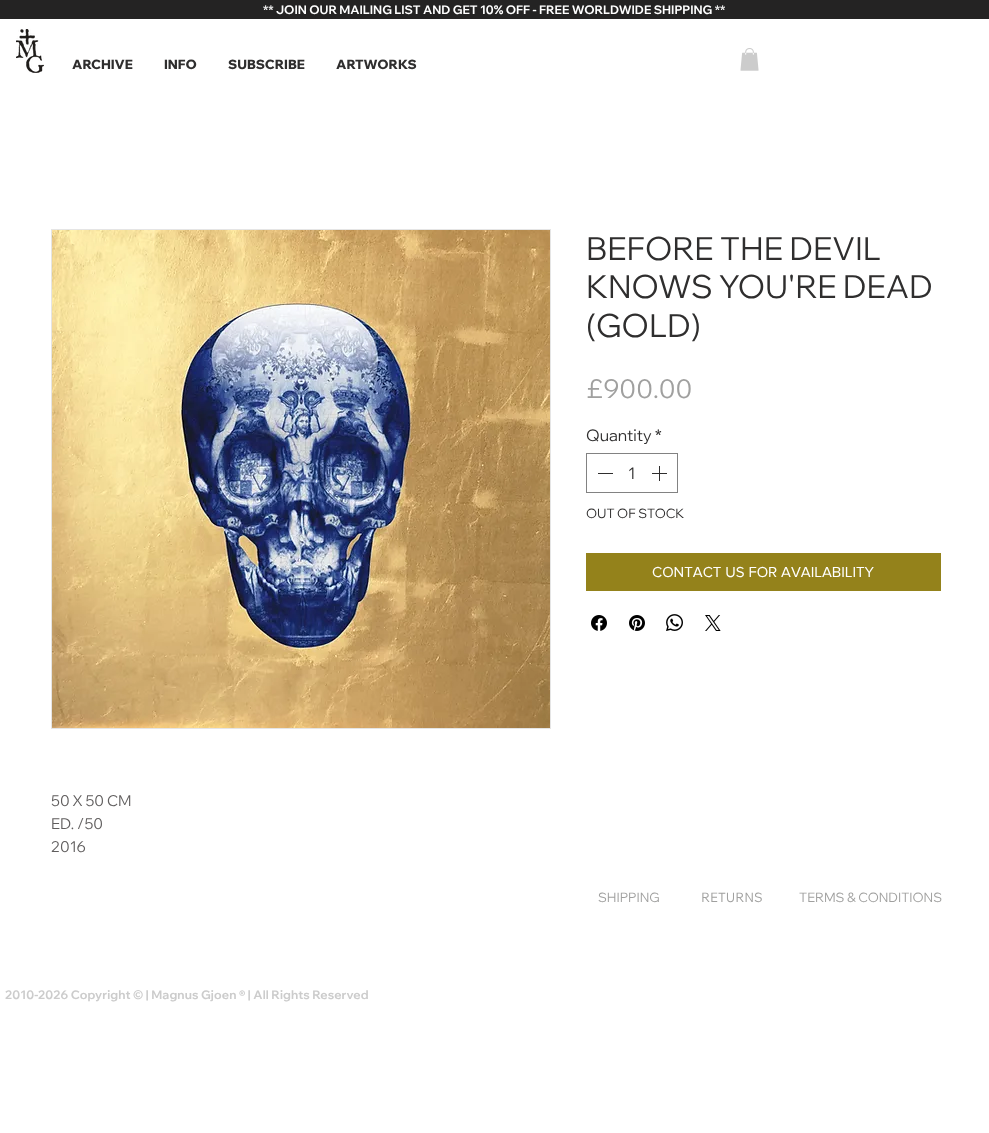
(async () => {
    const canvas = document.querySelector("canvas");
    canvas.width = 989;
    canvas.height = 1133;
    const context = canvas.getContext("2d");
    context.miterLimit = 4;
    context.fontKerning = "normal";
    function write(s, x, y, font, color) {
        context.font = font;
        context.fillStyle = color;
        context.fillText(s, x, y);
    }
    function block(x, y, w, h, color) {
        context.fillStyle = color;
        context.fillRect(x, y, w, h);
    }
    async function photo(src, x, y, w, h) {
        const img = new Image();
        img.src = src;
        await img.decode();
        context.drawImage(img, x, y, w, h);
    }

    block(0, 0, 989, 1133, "rgb(255, 255, 255)");
    block(0, 0, 989, 19, "rgb(36, 35, 35)");
    write("** JOIN OUR MAILING LIST AND GET 10% OFF - FREE WORLDWIDE SHIPPING **", 263, 14, "bold 12px Wix Madefor Display", "rgb(255, 255, 255)");
    await photo("media/1.png", 16, 29, 28, 44);
    write("ARCHIVE", 72, 69, "800 13px Wix Madefor Display", "rgb(47, 46, 46)");
    write("INFO", 164, 69, "800 13px Wix Madefor Display", "rgb(47, 46, 46)");
    write("SUBSCRIBE", 228, 69, "800 13px Wix Madefor Display", "rgb(47, 46, 46)");
    write("ARTWORKS", 336, 69, "800 13px Wix Madefor Display", "rgb(47, 46, 46)");
    await photo("media/2.png", 740, 48, 19, 23);
    write("BEFORE THE DEVIL", 586, 260, "32px Wix Madefor Display", "rgb(47, 46, 46)");
    write("KNOWS YOU'RE DEAD", 586, 298, "32px Wix Madefor Display", "rgb(47, 46, 46)");
    write("(GOLD)", 586, 337, "32px Wix Madefor Display", "rgb(47, 46, 46)");
    write("£900.00", 586, 398, "26px Wix Madefor Display", "rgb(160, 160, 159)");
    write("Quantity", 586, 441, "16px Wix Madefor Display", "rgb(47, 46, 46)");
    write("*", 655, 441, "16px Wix Madefor Display", "rgb(47, 46, 46)");
    context.strokeStyle = "rgb(130, 130, 130)";
    context.strokeRect(586.5, 453.5, 91, 39);
    block(598, 473, 15, 1, "rgb(47, 46, 46)");
    write("1", 628, 479, "16px Wix Madefor Display", "rgb(47, 46, 46)");
    await photo("media/3.png", 652, 466, 15, 15);
    write("OUT OF STOCK", 586, 518, "13px Wix Madefor Display", "rgb(47, 46, 46)");
    block(586, 553, 355, 38, "rgb(148, 130, 27)");
    write("CONTACT US FOR AVAILABILITY", 652, 577, "15px 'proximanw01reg'", "rgb(255, 255, 255)");
    await photo("media/4.png", 591, 615, 16, 16);
    await photo("media/5.png", 629, 615, 16, 16);
    await photo("media/6.png", 666, 614, 17, 17);
    await photo("media/7.png", 705, 615, 16, 16);
    context.strokeStyle = "rgb(229, 229, 229)";
    context.strokeRect(51.5, 229.5, 499, 499);
    await photo("media/8.png", 52, 230, 498, 498);
    write("50 X 50 CM", 51, 806, "15px Wix Madefor Display", "rgb(96, 94, 94)");
    write("ED. /50", 51, 829, "15px Wix Madefor Display", "rgb(96, 94, 94)");
    write("2016", 51, 852, "15px Wix Madefor Display", "rgb(96, 94, 94)");
    write("SHIPPING", 598, 902, "13px Wix Madefor Display", "rgb(160, 160, 159)");
    write("RETURNS", 701, 902, "13px Wix Madefor Text", "rgb(160, 160, 159)");
    write("TERMS & CONDITIONS", 799, 902, "13px Wix Madefor Display", "rgb(160, 160, 159)");
    context.letterSpacing = "0.12px";
    write("2010-2026 Copyright © | Magnus Gjoen ® | All Rights Reserved", 5, 999, "bold 12px Wix Madefor Display", "rgb(204, 204, 204)");
})();
